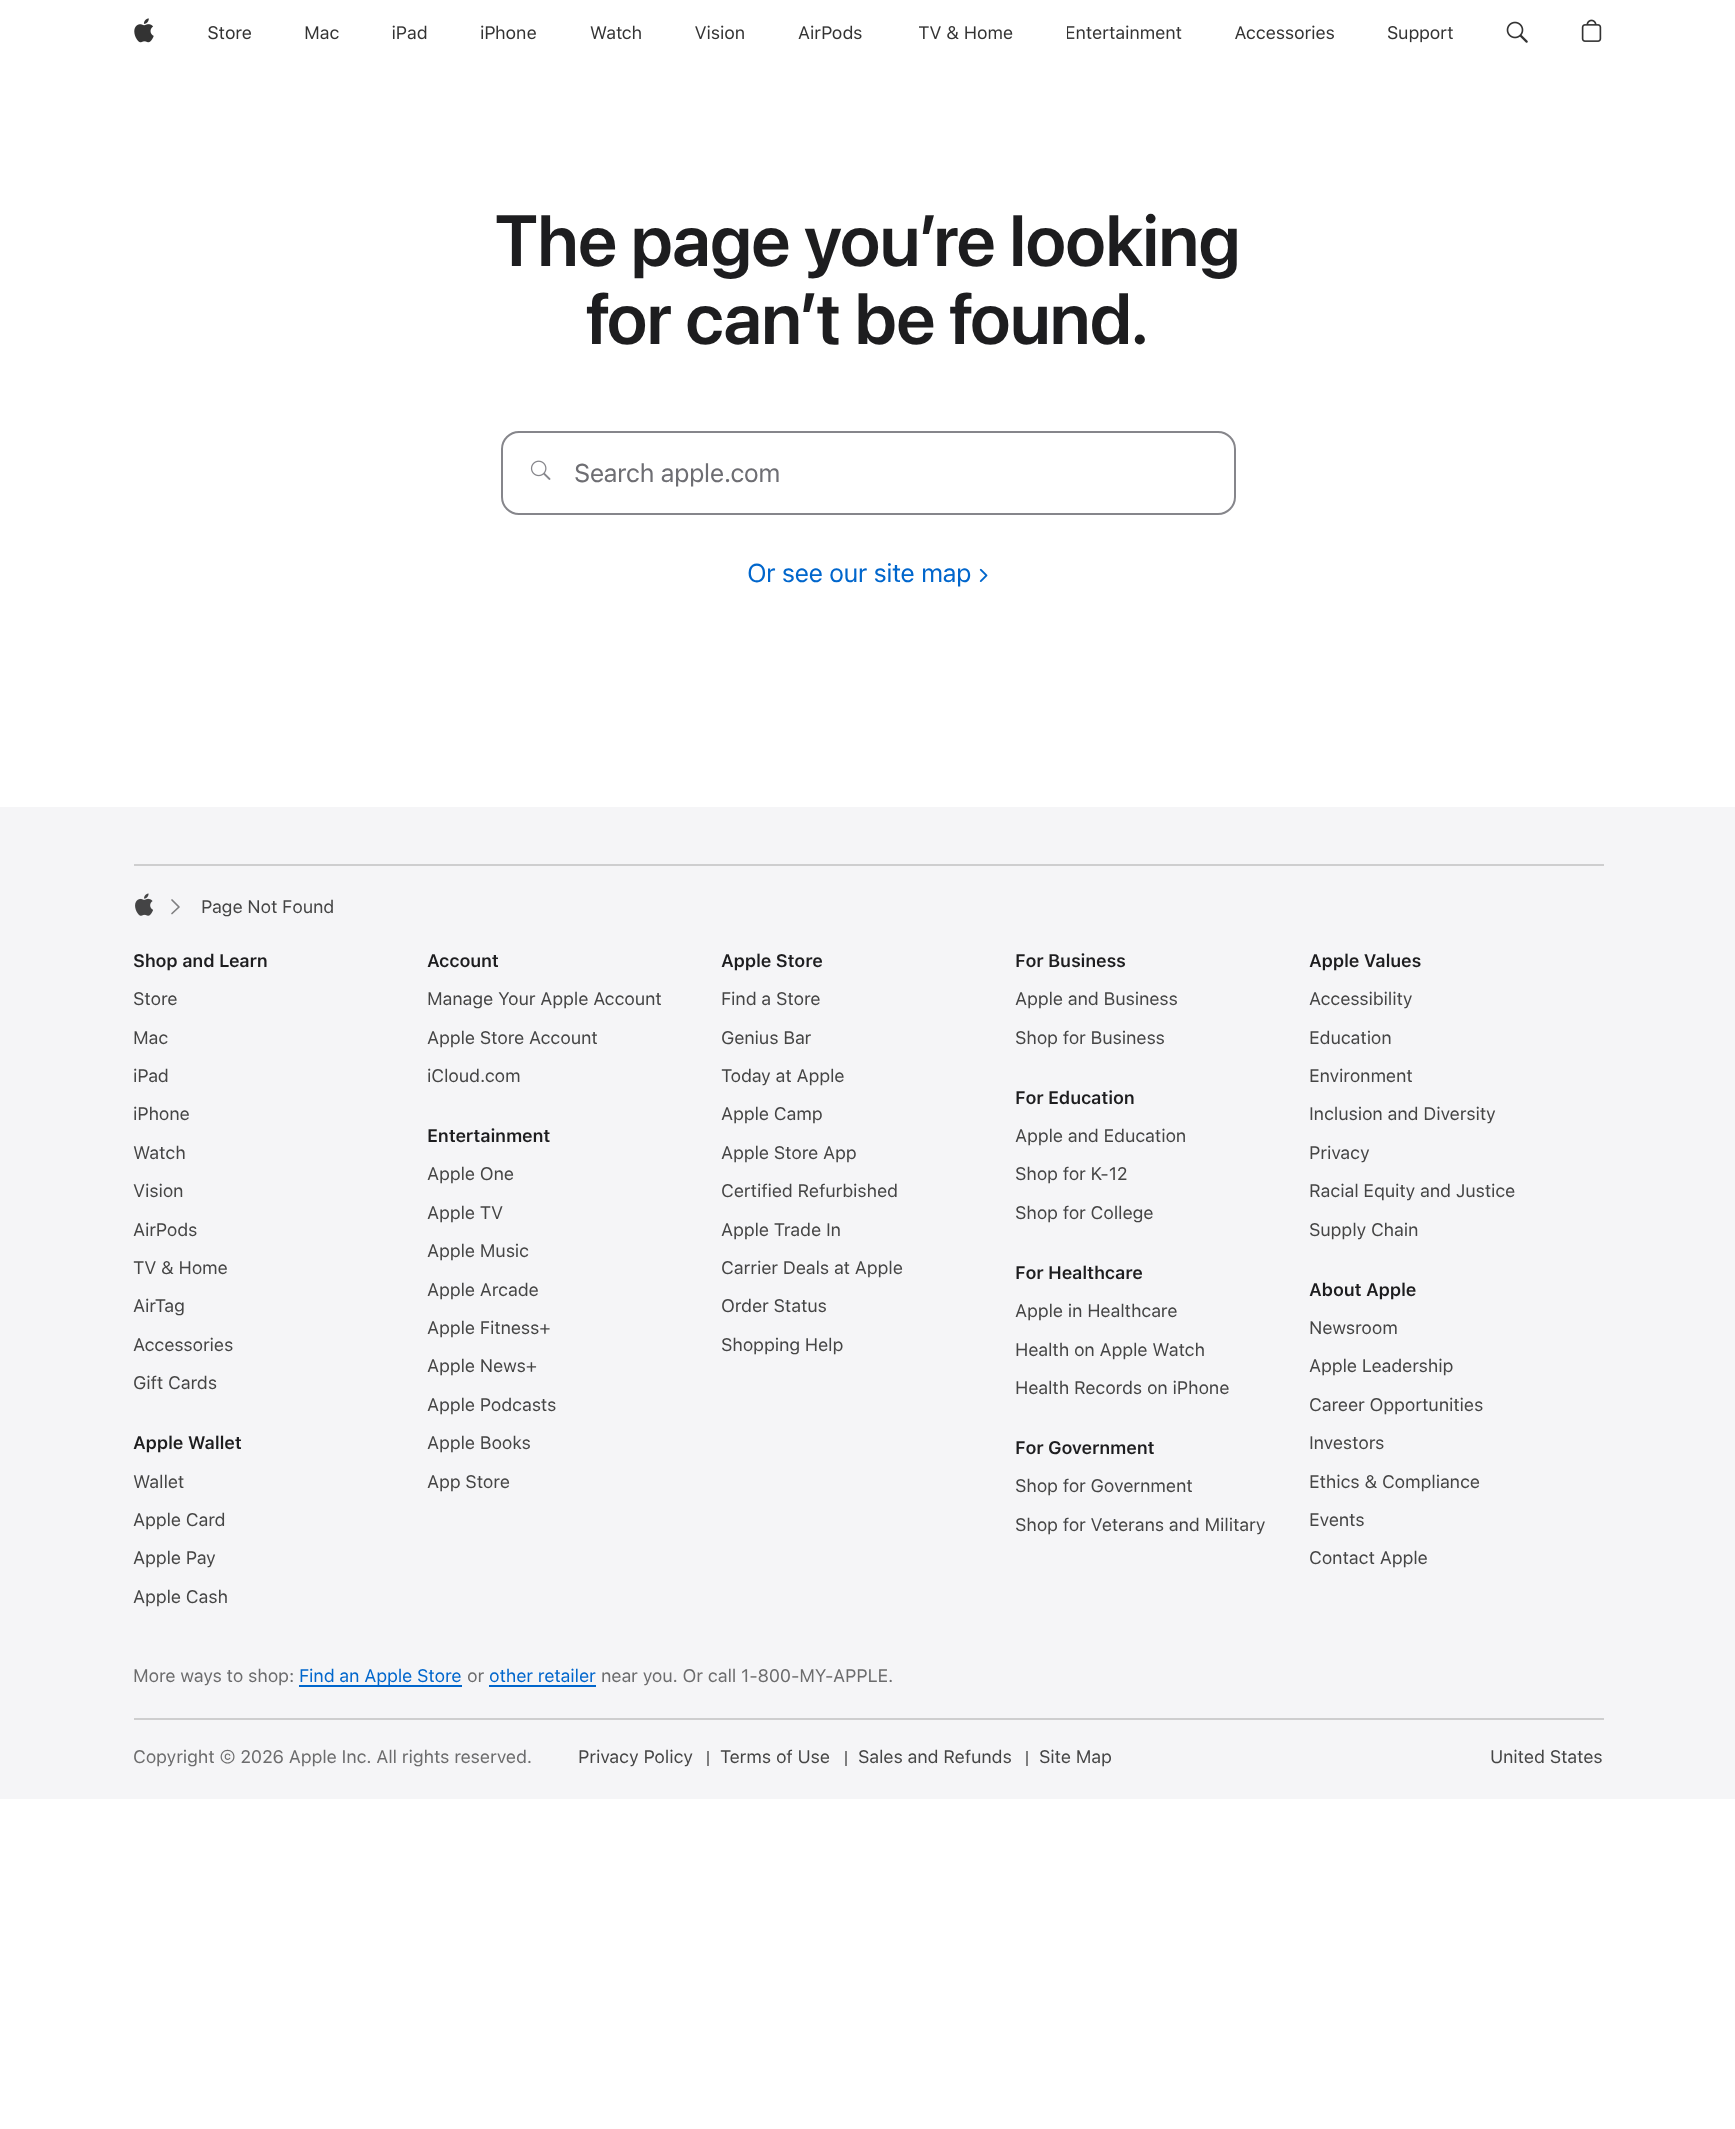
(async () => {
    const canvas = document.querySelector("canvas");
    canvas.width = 1735;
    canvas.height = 2129;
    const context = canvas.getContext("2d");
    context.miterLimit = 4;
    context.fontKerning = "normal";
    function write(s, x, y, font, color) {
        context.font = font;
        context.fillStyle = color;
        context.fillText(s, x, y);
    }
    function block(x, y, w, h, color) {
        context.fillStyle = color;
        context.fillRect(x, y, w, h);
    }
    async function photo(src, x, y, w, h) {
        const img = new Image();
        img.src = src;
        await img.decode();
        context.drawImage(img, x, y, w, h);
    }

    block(0, 0, 1735, 2129, "rgb(255, 255, 255)");
    await photo("media/1.png", 134, 18, 20, 25);
    await photo("media/2.png", 208, 26, 43, 14);
    await photo("media/3.png", 305, 26, 34, 14);
    await photo("media/4.png", 392, 25, 35, 15);
    await photo("media/5.png", 481, 25, 55, 15);
    await photo("media/6.png", 590, 25, 51, 15);
    await photo("media/7.png", 695, 25, 49, 15);
    await photo("media/8.png", 798, 25, 64, 15);
    await photo("media/9.png", 919, 26, 94, 14);
    await photo("media/10.png", 1067, 25, 115, 15);
    await photo("media/11.png", 1235, 25, 99, 15);
    await photo("media/12.png", 1388, 26, 65, 17);
    await photo("media/13.png", 1506, 21, 22, 22);
    await photo("media/14.png", 1581, 19, 21, 23);
    context.letterSpacing = "-0.25px";
    write("The page you’re looking", 495, 266, "600 72px SF Pro Display", "rgb(29, 29, 31)");
    write("for can’t be found.", 586, 344, "600 72px SF Pro Display", "rgb(29, 29, 31)");
    context.beginPath();
    context.roundRect(502, 432, 733, 82, 17);
    context.strokeStyle = "rgb(134, 134, 139)";
    context.lineWidth = 2;
    context.stroke();
    await photo("media/15.png", 530, 460, 21, 20);
    context.letterSpacing = "-0.6px";
    write("Search apple.com", 574, 482, "25.5px SF Pro Text", "rgb(110, 110, 115)");
    write("Or see our site map", 747, 582, "25.5px SF Pro Text", "rgb(0, 102, 204)");
    await photo("media/16.png", 979, 568, 9, 14);
    block(0, 807, 1735, 992, "rgb(245, 245, 247)");
    block(134, 864, 1470, 2, "rgb(206, 206, 207)");
    await photo("media/17.png", 135, 893, 18, 23);
    context.beginPath();
    context.moveTo(172, 900);
    context.lineTo(179, 907);
    context.lineTo(172, 913.5);
    context.strokeStyle = "rgb(127, 127, 128)";
    context.lineWidth = 1.7;
    context.lineCap = "round";
    context.lineJoin = "round";
    context.stroke();
    context.letterSpacing = "-0.2px";
    write("Page Not Found", 201, 913, "18px SF Pro Text", "rgb(69, 69, 69)");
    write("Shop and Learn", 133, 967, "600 18px SF Pro Text", "rgb(29, 29, 31)");
    write("Store", 133, 1005, "18px SF Pro Text", "rgb(69, 69, 69)");
    write("Mac", 133, 1044, "18px SF Pro Text", "rgb(69, 69, 69)");
    write("iPad", 133, 1082, "18px SF Pro Text", "rgb(69, 69, 69)");
    write("iPhone", 133, 1120, "18px SF Pro Text", "rgb(69, 69, 69)");
    write("Watch", 133, 1159, "18px SF Pro Text", "rgb(69, 69, 69)");
    write("Vision", 133, 1197, "18px SF Pro Text", "rgb(69, 69, 69)");
    write("AirPods", 133, 1236, "18px SF Pro Text", "rgb(69, 69, 69)");
    write("TV & Home", 133, 1274, "18px SF Pro Text", "rgb(69, 69, 69)");
    write("AirTag", 133, 1312, "18px SF Pro Text", "rgb(69, 69, 69)");
    write("Accessories", 133, 1351, "18px SF Pro Text", "rgb(69, 69, 69)");
    write("Gift Cards", 133, 1389, "18px SF Pro Text", "rgb(69, 69, 69)");
    write("Apple Wallet", 133, 1449, "600 18px SF Pro Text", "rgb(29, 29, 31)");
    write("Wallet", 133, 1488, "18px SF Pro Text", "rgb(69, 69, 69)");
    write("Apple Card", 133, 1526, "18px SF Pro Text", "rgb(69, 69, 69)");
    write("Apple Pay", 133, 1564, "18px SF Pro Text", "rgb(69, 69, 69)");
    write("Apple Cash", 133, 1603, "18px SF Pro Text", "rgb(69, 69, 69)");
    write("Account", 427, 967, "600 18px SF Pro Text", "rgb(29, 29, 31)");
    write("Manage Your Apple Account", 427, 1005, "18px SF Pro Text", "rgb(69, 69, 69)");
    write("Apple Store Account", 427, 1044, "18px SF Pro Text", "rgb(69, 69, 69)");
    write("iCloud.com", 427, 1082, "18px SF Pro Text", "rgb(69, 69, 69)");
    write("Entertainment", 427, 1142, "600 18px SF Pro Text", "rgb(29, 29, 31)");
    write("Apple One", 427, 1180, "18px SF Pro Text", "rgb(69, 69, 69)");
    write("Apple TV", 427, 1219, "18px SF Pro Text", "rgb(69, 69, 69)");
    write("Apple Music", 427, 1257, "18px SF Pro Text", "rgb(69, 69, 69)");
    write("Apple Arcade", 427, 1296, "18px SF Pro Text", "rgb(69, 69, 69)");
    write("Apple Fitness+", 427, 1334, "18px SF Pro Text", "rgb(69, 69, 69)");
    write("Apple News+", 427, 1372, "18px SF Pro Text", "rgb(69, 69, 69)");
    write("Apple Podcasts", 427, 1411, "18px SF Pro Text", "rgb(69, 69, 69)");
    write("Apple Books", 427, 1449, "18px SF Pro Text", "rgb(69, 69, 69)");
    write("App Store", 427, 1488, "18px SF Pro Text", "rgb(69, 69, 69)");
    write("Apple Store", 721, 967, "600 18px SF Pro Text", "rgb(29, 29, 31)");
    write("Find a Store", 721, 1005, "18px SF Pro Text", "rgb(69, 69, 69)");
    write("Genius Bar", 721, 1044, "18px SF Pro Text", "rgb(69, 69, 69)");
    write("Today at Apple", 721, 1082, "18px SF Pro Text", "rgb(69, 69, 69)");
    write("Apple Camp", 721, 1120, "18px SF Pro Text", "rgb(69, 69, 69)");
    write("Apple Store App", 721, 1159, "18px SF Pro Text", "rgb(69, 69, 69)");
    write("Certified Refurbished", 721, 1197, "18px SF Pro Text", "rgb(69, 69, 69)");
    write("Apple Trade In", 721, 1236, "18px SF Pro Text", "rgb(69, 69, 69)");
    write("Carrier Deals at Apple", 721, 1274, "18px SF Pro Text", "rgb(69, 69, 69)");
    write("Order Status", 721, 1312, "18px SF Pro Text", "rgb(69, 69, 69)");
    write("Shopping Help", 721, 1351, "18px SF Pro Text", "rgb(69, 69, 69)");
    write("For Business", 1015, 967, "600 18px SF Pro Text", "rgb(29, 29, 31)");
    write("Apple and Business", 1015, 1005, "18px SF Pro Text", "rgb(69, 69, 69)");
    write("Shop for Business", 1015, 1044, "18px SF Pro Text", "rgb(69, 69, 69)");
    write("For Education", 1015, 1104, "600 18px SF Pro Text", "rgb(29, 29, 31)");
    write("Apple and Education", 1015, 1142, "18px SF Pro Text", "rgb(69, 69, 69)");
    write("Shop for K-12", 1015, 1180, "18px SF Pro Text", "rgb(69, 69, 69)");
    write("Shop for College", 1015, 1219, "18px SF Pro Text", "rgb(69, 69, 69)");
    write("For Healthcare", 1015, 1279, "600 18px SF Pro Text", "rgb(29, 29, 31)");
    write("Apple in Healthcare", 1015, 1317, "18px SF Pro Text", "rgb(69, 69, 69)");
    write("Health on Apple Watch", 1015, 1356, "18px SF Pro Text", "rgb(69, 69, 69)");
    write("Health Records on iPhone", 1015, 1394, "18px SF Pro Text", "rgb(69, 69, 69)");
    write("For Government", 1015, 1454, "600 18px SF Pro Text", "rgb(29, 29, 31)");
    write("Shop for Government", 1015, 1492, "18px SF Pro Text", "rgb(69, 69, 69)");
    write("Shop for Veterans and Military", 1015, 1531, "18px SF Pro Text", "rgb(69, 69, 69)");
    write("Apple Values", 1309, 967, "600 18px SF Pro Text", "rgb(29, 29, 31)");
    write("Accessibility", 1309, 1005, "18px SF Pro Text", "rgb(69, 69, 69)");
    write("Education", 1309, 1044, "18px SF Pro Text", "rgb(69, 69, 69)");
    write("Environment", 1309, 1082, "18px SF Pro Text", "rgb(69, 69, 69)");
    write("Inclusion and Diversity", 1309, 1120, "18px SF Pro Text", "rgb(69, 69, 69)");
    write("Privacy", 1309, 1159, "18px SF Pro Text", "rgb(69, 69, 69)");
    write("Racial Equity and Justice", 1309, 1197, "18px SF Pro Text", "rgb(69, 69, 69)");
    write("Supply Chain", 1309, 1236, "18px SF Pro Text", "rgb(69, 69, 69)");
    write("About Apple", 1309, 1296, "600 18px SF Pro Text", "rgb(29, 29, 31)");
    write("Newsroom", 1309, 1334, "18px SF Pro Text", "rgb(69, 69, 69)");
    write("Apple Leadership", 1309, 1372, "18px SF Pro Text", "rgb(69, 69, 69)");
    write("Career Opportunities", 1309, 1411, "18px SF Pro Text", "rgb(69, 69, 69)");
    write("Investors", 1309, 1449, "18px SF Pro Text", "rgb(69, 69, 69)");
    write("Ethics & Compliance", 1309, 1488, "18px SF Pro Text", "rgb(69, 69, 69)");
    write("Events", 1309, 1526, "18px SF Pro Text", "rgb(69, 69, 69)");
    write("Contact Apple", 1309, 1564, "18px SF Pro Text", "rgb(69, 69, 69)");
    block(134, 1718, 1470, 2, "rgb(206, 206, 207)");
    write("More ways to shop:", 133, 1682, "18px SF Pro Text", "rgb(108, 108, 109)");
    block(299, 1685, 163, 2, "rgb(0, 102, 204)");
    write("Find an Apple Store", 299, 1682, "18px SF Pro Text", "rgb(0, 102, 204)");
    write("or", 467, 1682, "18px SF Pro Text", "rgb(108, 108, 109)");
    write("other retailer", 489, 1682, "18px SF Pro Text", "rgb(0, 102, 204)");
    block(489, 1685, 107, 2, "rgb(0, 102, 204)");
    write("near you. Or call 1‑800‑MY‑APPLE.", 601, 1682, "18px SF Pro Text", "rgb(108, 108, 109)");
    write("Copyright © 2026 Apple Inc. All rights reserved.", 133, 1763, "18px SF Pro Text", "rgb(108, 108, 109)");
    write("Privacy Policy", 578, 1763, "18px SF Pro Text", "rgb(69, 69, 69)");
    block(707, 1751, 2, 15, "rgb(127, 127, 128)");
    write("Terms of Use", 720, 1763, "18px SF Pro Text", "rgb(69, 69, 69)");
    block(845, 1751, 2, 15, "rgb(127, 127, 128)");
    write("Sales and Refunds", 858, 1763, "18px SF Pro Text", "rgb(69, 69, 69)");
    block(1026, 1751, 2, 15, "rgb(127, 127, 128)");
    write("Site Map", 1039, 1763, "18px SF Pro Text", "rgb(69, 69, 69)");
    write("United States", 1490, 1763, "18px SF Pro Text", "rgb(69, 69, 69)");
})();
